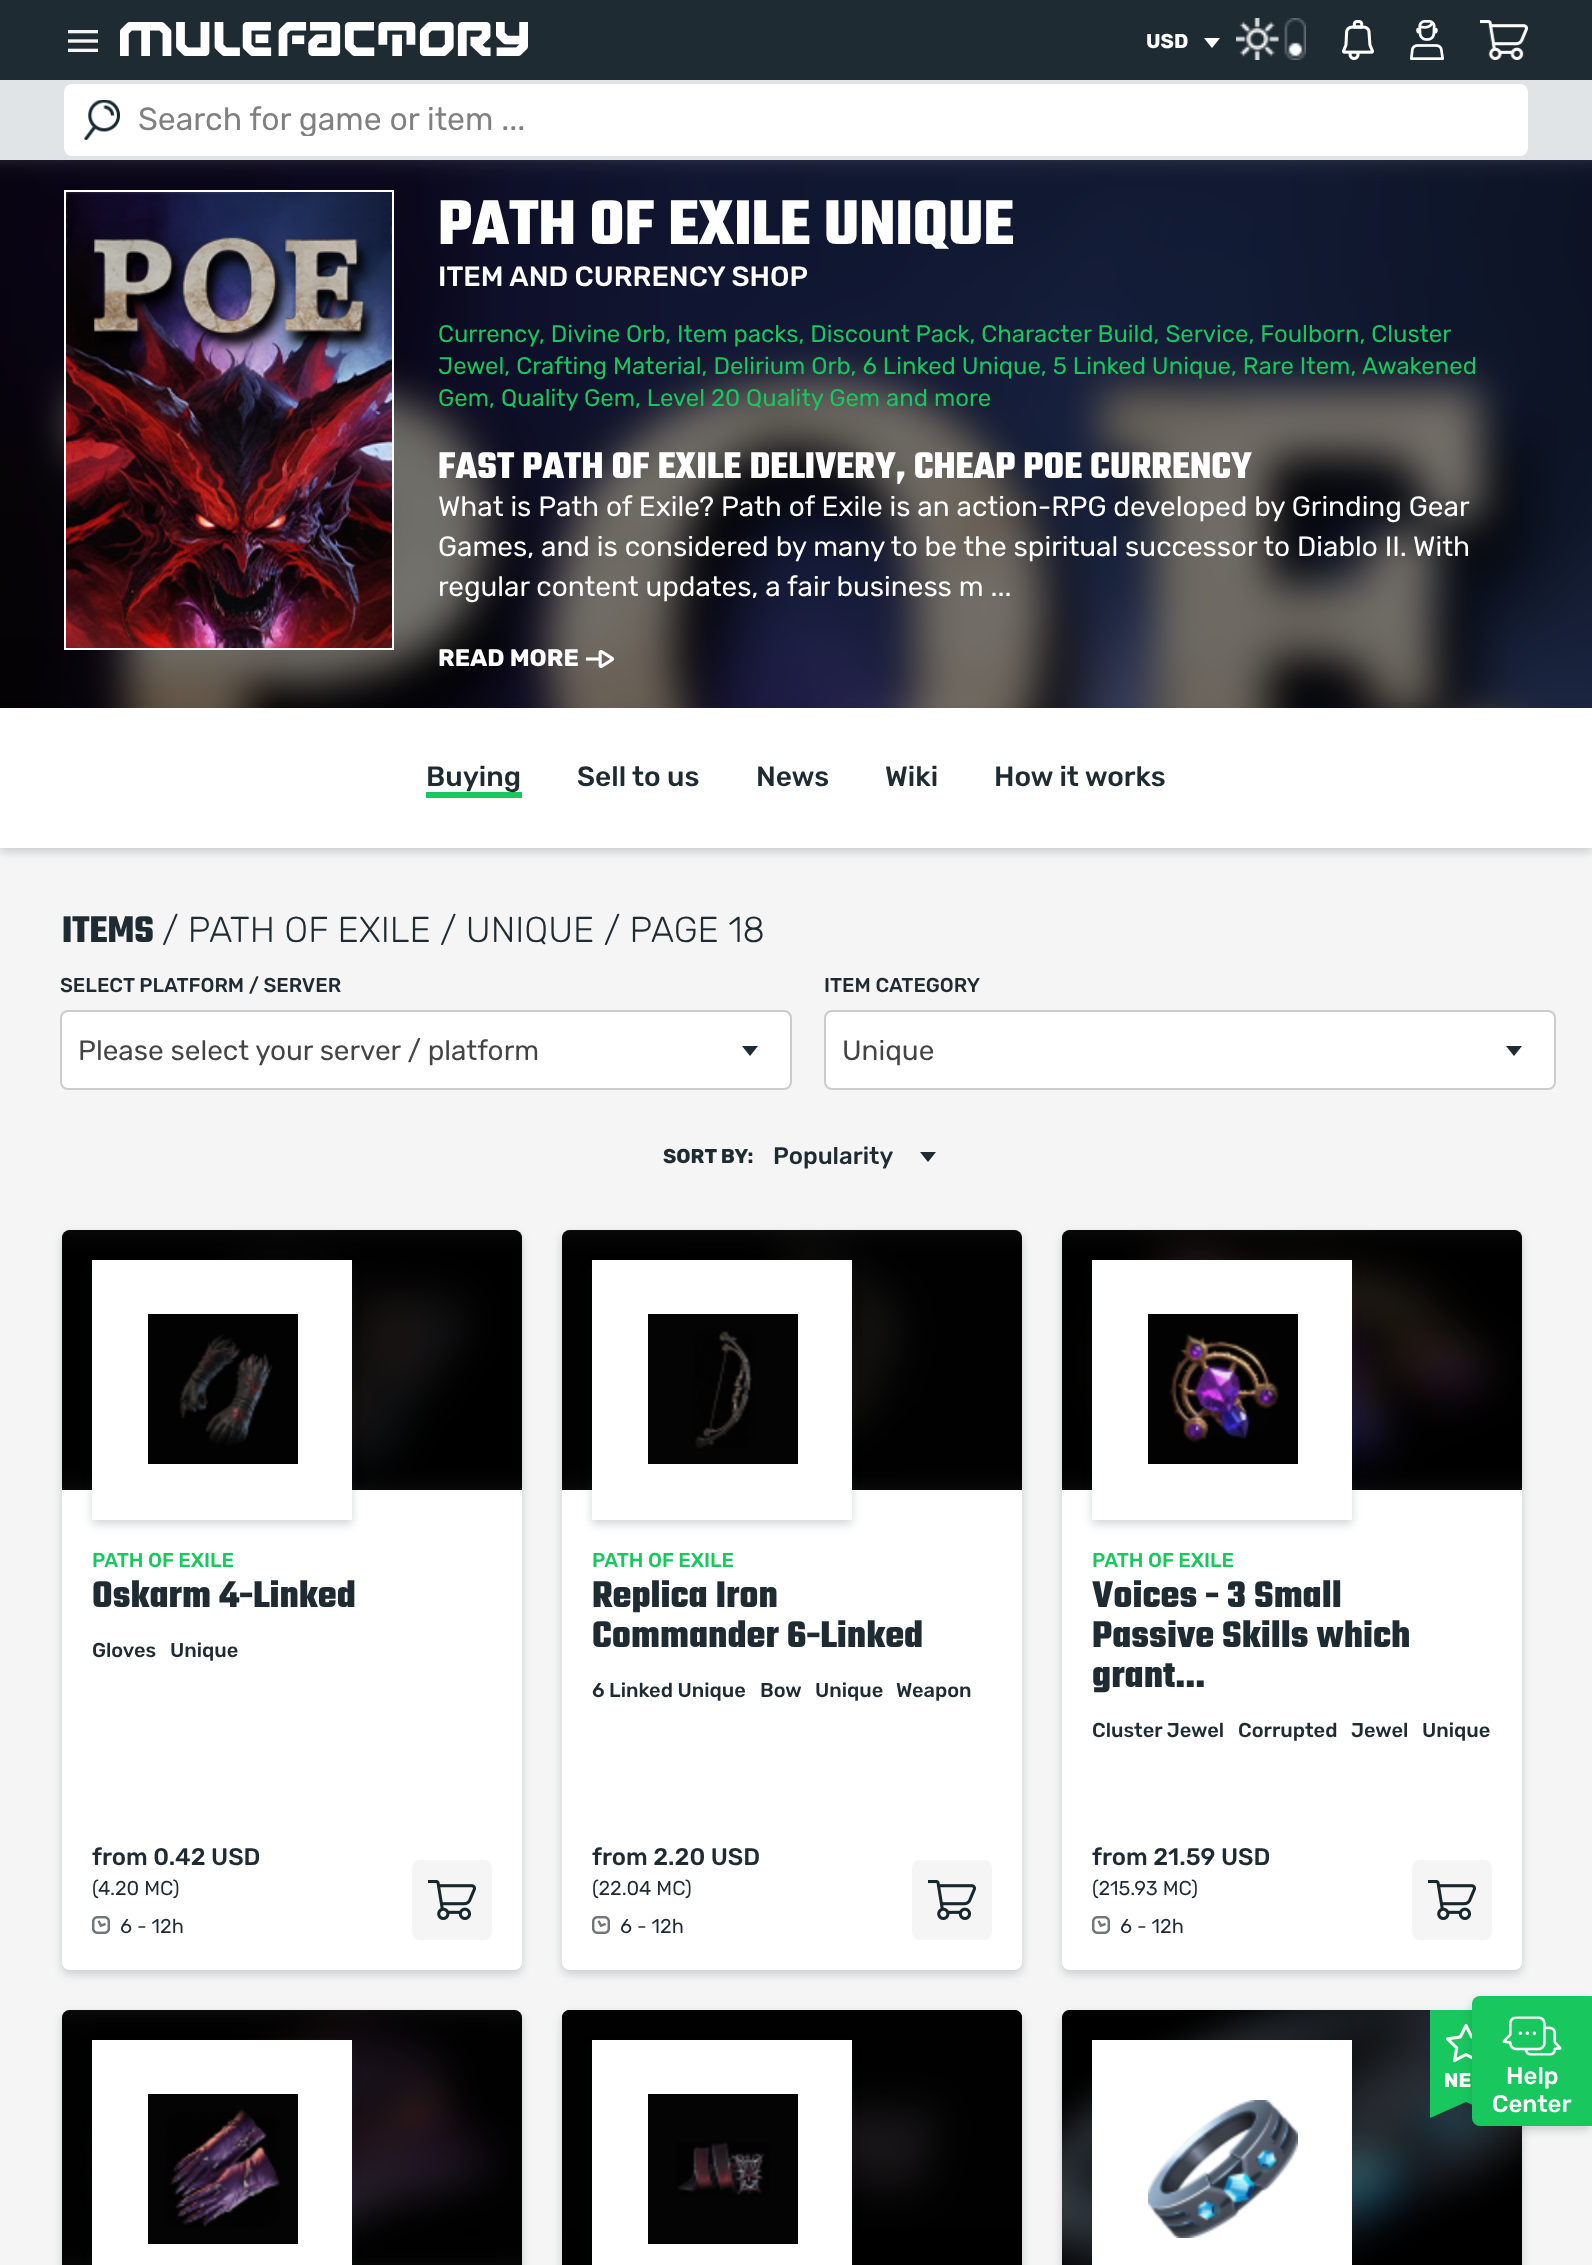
(async () => {
    const canvas = document.querySelector("canvas");
    canvas.width = 1592;
    canvas.height = 2265;
    const context = canvas.getContext("2d");
    context.miterLimit = 4;
    context.fontKerning = "normal";
    function write(s, x, y, font, color) {
        context.font = font;
        context.fillStyle = color;
        context.fillText(s, x, y);
    }
    function block(x, y, w, h, color) {
        context.fillStyle = color;
        context.fillRect(x, y, w, h);
    }
    function card(x, y, w, h, r, color) {
        context.fillStyle = color;
        context.beginPath();
        context.roundRect(x, y, w, h, r);
        context.fill();
    }
    async function photo(src, x, y, w, h) {
        const img = new Image();
        img.src = src;
        await img.decode();
        context.drawImage(img, x, y, w, h);
    }

    block(0, 0, 1592, 2265, "rgb(245, 245, 245)");
    block(0, 0, 1592, 80, "rgb(31, 43, 51)");
    await photo("media/1.png", 68, 30, 30, 22);
    await photo("media/2.png", 120, 22, 408, 34);
    write("USD", 1146, 48, "bold 20px Rubik", "rgb(255, 255, 255)");
    context.beginPath();
    context.moveTo(1204, 38);
    context.lineTo(1220, 38);
    context.lineTo(1212, 48);
    context.closePath();
    context.fill();
    await photo("media/3.png", 1236, 18, 70, 42);
    await photo("media/4.png", 1342, 20, 32, 40);
    await photo("media/5.png", 1410, 20, 34, 40);
    await photo("media/6.png", 1480, 20, 48, 40);
    block(0, 80, 1592, 80, "rgb(224, 228, 231)");
    card(64, 84, 1464, 72, 8, "rgb(255, 255, 255)");
    await photo("media/7.png", 84, 100, 36, 40);
    context.save();
    context.beginPath();
    context.rect(138, 104, 1350, 32);
    context.clip();
    write("Search for game or item ...", 138, 130, "32px Rubik", "rgb(128, 128, 128)");
    context.restore();
    await photo("media/8.png", 0, 160, 1592, 548);
    context.strokeStyle = "rgb(255, 255, 255)";
    context.lineWidth = 2;
    context.strokeRect(65, 191, 328, 458);
    await photo("media/9.png", 66, 192, 326, 456);
    write("PATH OF EXILE UNIQUE", 438, 244, "bold 68px Teko", "rgb(255, 255, 255)");
    write("ITEM AND CURRENCY SHOP", 438, 286, "500 28px Rubik", "rgb(255, 255, 255)");
    write("Currency", 438, 342, "24px Rubik", "rgb(24, 199, 93)");
    write(", Divine Orb, Item packs, Discount Pack, Character Build, Service, Foulborn, Cluster", 539, 342, "24px Rubik", "rgb(24, 199, 93)");
    write("Jewel, Crafting Material, Delirium Orb, 6 Linked Unique, 5 Linked Unique, Rare Item,", 438, 374, "24px Rubik", "rgb(24, 199, 93)");
    write("Awakened", 1362, 374, "24px Rubik", "rgb(24, 199, 93)");
    write("Gem, Quality Gem, Level 20 Quality Gem and more", 438, 406, "24px Rubik", "rgb(24, 199, 93)");
    write("FAST PATH OF EXILE DELIVERY, CHEAP POE CURRENCY", 438, 478, "bold 40px Teko", "rgb(255, 255, 255)");
    write("What is Path of Exile? Path of Exile is an action-RPG developed by Grinding Gear", 438, 516, "28px Rubik", "rgb(255, 255, 255)");
    write("Games, and is considered by many to be the spiritual successor to Diablo II. With", 438, 556, "28px Rubik", "rgb(255, 255, 255)");
    write("regular content updates, a fair business m ...", 438, 596, "28px Rubik", "rgb(255, 255, 255)");
    write("READ MORE", 438, 666, "bold 24px Rubik", "rgb(255, 255, 255)");
    await photo("media/10.png", 586, 650, 28, 18);
    context.fillStyle = "rgba(31, 43, 51, 0.2)";
    context.filter = "blur(5px)";
    context.beginPath();
    context.rect(0, 712, 1592, 140);
    context.fill();
    context.filter = "none";
    block(0, 708, 1592, 140, "rgb(255, 255, 255)");
    block(426, 792, 96, 6, "rgb(24, 199, 93)");
    write("Buying", 426, 786, "500 28px Rubik", "rgb(31, 43, 51)");
    write("Sell to us", 577, 786, "500 28px Rubik", "rgb(31, 43, 51)");
    write("News", 756, 786, "500 28px Rubik", "rgb(31, 43, 51)");
    write("Wiki", 885, 786, "500 28px Rubik", "rgb(31, 43, 51)");
    write("How it works", 994, 786, "500 28px Rubik", "rgb(31, 43, 51)");
    write("ITEMS", 62, 942, "bold 40px Teko", "rgb(31, 43, 51)");
    write("/ PATH OF EXILE / UNIQUE / PAGE 18", 162, 942, "300 36px Rubik", "rgb(31, 43, 51)");
    write("SELECT PLATFORM / SERVER", 60, 992, "500 20px Rubik", "rgb(31, 43, 51)");
    context.fillStyle = "rgb(255, 255, 255)";
    context.beginPath();
    context.roundRect(61, 1011, 730, 78, 7);
    context.fill();
    context.strokeStyle = "rgb(204, 204, 204)";
    context.stroke();
    write("Please select your server / platform", 78, 1060, "28px Rubik", "rgb(68, 68, 68)");
    context.fillStyle = "rgb(31, 43, 51)";
    context.beginPath();
    context.moveTo(742, 1046);
    context.lineTo(758, 1046);
    context.lineTo(750, 1056);
    context.closePath();
    context.fill();
    write("ITEM CATEGORY", 824, 992, "500 20px Rubik", "rgb(31, 43, 51)");
    context.fillStyle = "rgb(255, 255, 255)";
    context.beginPath();
    context.roundRect(825, 1011, 730, 78, 7);
    context.fill();
    context.stroke();
    write("Unique", 842, 1060, "28px Rubik", "rgb(68, 68, 68)");
    context.fillStyle = "rgb(31, 43, 51)";
    context.beginPath();
    context.moveTo(1506, 1046);
    context.lineTo(1522, 1046);
    context.lineTo(1514, 1056);
    context.closePath();
    context.fill();
    write("SORT BY:", 663, 1163, "bold 20px Rubik", "rgb(31, 43, 51)");
    write("Popularity", 773, 1164, "500 24px Rubik", "rgb(31, 43, 51)");
    context.beginPath();
    context.moveTo(920, 1152);
    context.lineTo(936, 1152);
    context.lineTo(928, 1162);
    context.closePath();
    context.fill();
    context.fillStyle = "rgba(31, 43, 51, 0.2)";
    context.filter = "blur(5px)";
    context.beginPath();
    context.roundRect(62, 1234, 460, 740, 8);
    context.fill();
    context.filter = "none";
    card(62, 1230, 460, 740, 8, "rgb(255, 255, 255)");
    await photo("media/11.png", 62, 1230, 460, 260);
    context.fillStyle = "rgba(0, 0, 0, 0.6)";
    context.beginPath();
    context.roundRect(62, 1230, 460, 260, [8, 8, 0, 0]);
    context.fill();
    context.fillStyle = "rgba(31, 43, 51, 0.2)";
    context.filter = "blur(5px)";
    context.beginPath();
    context.rect(92, 1264, 260, 260);
    context.fill();
    context.filter = "none";
    block(92, 1260, 260, 260, "rgb(255, 255, 255)");
    await photo("media/12.png", 148, 1314, 150, 150);
    write("PATH OF EXILE", 92, 1567, "500 20px Rubik", "rgb(24, 199, 93)");
    write("Oskarm 4-Linked", 92, 1607, "bold 40px Teko", "rgb(31, 43, 51)");
    write("Gloves", 92, 1657, "500 20px Rubik", "rgb(31, 43, 51)");
    write("Unique", 170, 1657, "500 20px Rubik", "rgb(31, 43, 51)");
    write("from 0.42 USD", 92, 1865, "500 24px Rubik", "rgb(31, 43, 51)");
    write("(4.20 MC)", 92, 1895, "20px Rubik", "rgb(31, 43, 51)");
    await photo("media/13.png", 92, 1916, 18, 18);
    write("6 - 12h", 120, 1933, "20px Rubik", "rgb(31, 43, 51)");
    card(412, 1860, 80, 80, 8, "rgb(245, 245, 245)");
    await photo("media/14.png", 428, 1880, 48, 40);
    context.fillStyle = "rgba(31, 43, 51, 0.2)";
    context.filter = "blur(5px)";
    context.beginPath();
    context.roundRect(562, 1234, 460, 740, 8);
    context.fill();
    context.filter = "none";
    card(562, 1230, 460, 740, 8, "rgb(255, 255, 255)");
    await photo("media/15.png", 562, 1230, 460, 260);
    context.fillStyle = "rgba(0, 0, 0, 0.6)";
    context.beginPath();
    context.roundRect(562, 1230, 460, 260, [8, 8, 0, 0]);
    context.fill();
    context.fillStyle = "rgba(31, 43, 51, 0.2)";
    context.filter = "blur(5px)";
    context.beginPath();
    context.rect(592, 1264, 260, 260);
    context.fill();
    context.filter = "none";
    block(592, 1260, 260, 260, "rgb(255, 255, 255)");
    await photo("media/16.png", 648, 1314, 150, 150);
    write("PATH OF EXILE", 592, 1567, "500 20px Rubik", "rgb(24, 199, 93)");
    write("Replica Iron", 592, 1607, "bold 40px Teko", "rgb(31, 43, 51)");
    write("Commander 6-Linked", 592, 1647, "bold 40px Teko", "rgb(31, 43, 51)");
    write("6 Linked Unique", 592, 1697, "500 20px Rubik", "rgb(31, 43, 51)");
    write("Bow", 760, 1697, "500 20px Rubik", "rgb(31, 43, 51)");
    write("Unique", 815, 1697, "500 20px Rubik", "rgb(31, 43, 51)");
    write("Weapon", 896, 1697, "500 20px Rubik", "rgb(31, 43, 51)");
    write("from 2.20 USD", 592, 1865, "500 24px Rubik", "rgb(31, 43, 51)");
    write("(22.04 MC)", 592, 1895, "20px Rubik", "rgb(31, 43, 51)");
    await photo("media/13.png", 592, 1916, 18, 18);
    write("6 - 12h", 620, 1933, "20px Rubik", "rgb(31, 43, 51)");
    card(912, 1860, 80, 80, 8, "rgb(245, 245, 245)");
    await photo("media/14.png", 928, 1880, 48, 40);
    context.fillStyle = "rgba(31, 43, 51, 0.2)";
    context.filter = "blur(5px)";
    context.beginPath();
    context.roundRect(1062, 1234, 460, 740, 8);
    context.fill();
    context.filter = "none";
    card(1062, 1230, 460, 740, 8, "rgb(255, 255, 255)");
    await photo("media/17.png", 1062, 1230, 460, 260);
    context.fillStyle = "rgba(0, 0, 0, 0.6)";
    context.beginPath();
    context.roundRect(1062, 1230, 460, 260, [8, 8, 0, 0]);
    context.fill();
    context.fillStyle = "rgba(31, 43, 51, 0.2)";
    context.filter = "blur(5px)";
    context.beginPath();
    context.rect(1092, 1264, 260, 260);
    context.fill();
    context.filter = "none";
    block(1092, 1260, 260, 260, "rgb(255, 255, 255)");
    await photo("media/18.png", 1148, 1314, 150, 150);
    write("PATH OF EXILE", 1092, 1567, "500 20px Rubik", "rgb(24, 199, 93)");
    write("Voices - 3 Small", 1092, 1607, "bold 40px Teko", "rgb(31, 43, 51)");
    write("Passive Skills which", 1092, 1647, "bold 40px Teko", "rgb(31, 43, 51)");
    write("grant...", 1092, 1687, "bold 40px Teko", "rgb(31, 43, 51)");
    write("Cluster Jewel", 1092, 1737, "500 20px Rubik", "rgb(31, 43, 51)");
    write("Corrupted", 1238, 1737, "500 20px Rubik", "rgb(31, 43, 51)");
    write("Jewel", 1351, 1737, "500 20px Rubik", "rgb(31, 43, 51)");
    write("Unique", 1422, 1737, "500 20px Rubik", "rgb(31, 43, 51)");
    write("from 21.59 USD", 1092, 1865, "500 24px Rubik", "rgb(31, 43, 51)");
    write("(215.93 MC)", 1092, 1895, "20px Rubik", "rgb(31, 43, 51)");
    await photo("media/13.png", 1092, 1916, 18, 18);
    write("6 - 12h", 1120, 1933, "20px Rubik", "rgb(31, 43, 51)");
    card(1412, 1860, 80, 80, 8, "rgb(245, 245, 245)");
    await photo("media/14.png", 1428, 1880, 48, 40);
    context.save();
    context.beginPath();
    context.moveTo(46, 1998);
    context.lineTo(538, 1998);
    context.lineTo(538, 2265);
    context.lineTo(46, 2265);
    context.closePath();
    context.moveTo(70, 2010);
    context.lineTo(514, 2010);
    context.bezierCurveTo(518.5, 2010, 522, 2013.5, 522, 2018);
    context.lineTo(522, 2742);
    context.bezierCurveTo(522, 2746.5, 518.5, 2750, 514, 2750);
    context.lineTo(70, 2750);
    context.bezierCurveTo(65.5, 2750, 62, 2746.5, 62, 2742);
    context.lineTo(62, 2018);
    context.bezierCurveTo(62, 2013.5, 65.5, 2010, 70, 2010);
    context.closePath();
    context.clip("evenodd");
    context.fillStyle = "rgba(31, 43, 51, 0.2)";
    context.filter = "blur(5px)";
    context.beginPath();
    context.roundRect(62, 2014, 460, 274, 8);
    context.fill();
    context.filter = "none";
    context.restore();
    await photo("media/19.png", 62, 2010, 460, 255);
    context.fillStyle = "rgba(0, 0, 0, 0.6)";
    context.beginPath();
    context.moveTo(70, 2010);
    context.lineTo(514, 2010);
    context.bezierCurveTo(518.5, 2010, 522, 2013.5, 522, 2018);
    context.lineTo(522, 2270);
    context.lineTo(62, 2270);
    context.lineTo(62, 2018);
    context.bezierCurveTo(62, 2013.5, 65.5, 2010, 70, 2010);
    context.closePath();
    context.fill();
    context.fillStyle = "rgba(31, 43, 51, 0.2)";
    context.filter = "blur(5px)";
    context.beginPath();
    context.rect(92, 2044, 260, 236);
    context.fill();
    context.filter = "none";
    block(92, 2040, 260, 225, "rgb(255, 255, 255)");
    await photo("media/20.png", 148, 2094, 150, 150);
    context.fillStyle = "rgba(31, 43, 51, 0.2)";
    context.filter = "blur(5px)";
    context.beginPath();
    context.roundRect(562, 2014, 460, 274, 8);
    context.fill();
    context.filter = "none";
    context.fillStyle = "rgb(0, 0, 0)";
    context.beginPath();
    context.moveTo(570, 2010);
    context.lineTo(1014, 2010);
    context.bezierCurveTo(1018.5, 2010, 1022, 2013.5, 1022, 2018);
    context.lineTo(1022, 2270);
    context.lineTo(562, 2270);
    context.lineTo(562, 2018);
    context.bezierCurveTo(562, 2013.5, 565.5, 2010, 570, 2010);
    context.closePath();
    context.fill();
    await photo("media/21.png", 562, 2010, 460, 220);
    context.fillStyle = "rgba(0, 0, 0, 0.6)";
    context.beginPath();
    context.moveTo(570, 2010);
    context.lineTo(1014, 2010);
    context.bezierCurveTo(1018.5, 2010, 1022, 2013.5, 1022, 2018);
    context.lineTo(1022, 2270);
    context.lineTo(562, 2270);
    context.lineTo(562, 2018);
    context.bezierCurveTo(562, 2013.5, 565.5, 2010, 570, 2010);
    context.closePath();
    context.fill();
    context.fillStyle = "rgba(31, 43, 51, 0.2)";
    context.filter = "blur(5px)";
    context.beginPath();
    context.rect(592, 2044, 260, 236);
    context.fill();
    context.filter = "none";
    block(592, 2040, 260, 225, "rgb(255, 255, 255)");
    await photo("media/22.png", 648, 2094, 150, 150);
    context.fillStyle = "rgba(31, 43, 51, 0.2)";
    context.filter = "blur(5px)";
    context.beginPath();
    context.roundRect(1062, 2014, 460, 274, 8);
    context.fill();
    context.filter = "none";
    context.fillStyle = "rgb(0, 0, 0)";
    context.beginPath();
    context.moveTo(1070, 2010);
    context.lineTo(1514, 2010);
    context.bezierCurveTo(1518.5, 2010, 1522, 2013.5, 1522, 2018);
    context.lineTo(1522, 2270);
    context.lineTo(1062, 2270);
    context.lineTo(1062, 2018);
    context.bezierCurveTo(1062, 2013.5, 1065.5, 2010, 1070, 2010);
    context.closePath();
    context.fill();
    await photo("media/23.png", 1062, 2010, 460, 255);
    context.fillStyle = "rgba(0, 0, 0, 0.6)";
    context.beginPath();
    context.moveTo(1070, 2010);
    context.lineTo(1514, 2010);
    context.bezierCurveTo(1518.5, 2010, 1522, 2013.5, 1522, 2018);
    context.lineTo(1522, 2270);
    context.lineTo(1062, 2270);
    context.lineTo(1062, 2018);
    context.bezierCurveTo(1062, 2013.5, 1065.5, 2010, 1070, 2010);
    context.closePath();
    context.fill();
    block(1092, 2040, 260, 225, "rgb(255, 255, 255)");
    await photo("media/24.png", 1148, 2100, 150, 138);
    context.fillStyle = "rgb(24, 199, 93)";
    context.beginPath();
    context.moveTo(1502, 2010);
    context.lineTo(1502, 2118);
    context.lineTo(1466, 2102);
    context.lineTo(1466, 2010);
    context.closePath();
    context.fill();
    context.beginPath();
    context.moveTo(1430, 2118);
    context.lineTo(1430, 2010);
    context.lineTo(1466, 2010);
    context.lineTo(1466, 2102);
    context.closePath();
    context.fill();
    await photo("media/25.png", 1446, 2024, 26, 38);
    write("NE", 1444, 2087, "bold 20px Rubik", "rgb(255, 255, 255)");
    context.fillStyle = "rgba(31, 43, 51, 0.2)";
    context.filter = "blur(5px)";
    context.beginPath();
    context.roundRect(1472, 2000, 120, 130, 8);
    context.fill();
    context.filter = "none";
    context.fillStyle = "rgb(24, 199, 93)";
    context.beginPath();
    context.roundRect(1472, 1996, 120, 130, [8, 0, 0, 8]);
    context.fill();
    await photo("media/26.png", 1502, 2016, 60, 40);
    write("Help", 1506, 2084, "500 24px Rubik", "rgb(255, 255, 255)");
    write("Center", 1492, 2112, "500 24px Rubik", "rgb(255, 255, 255)");
})();
